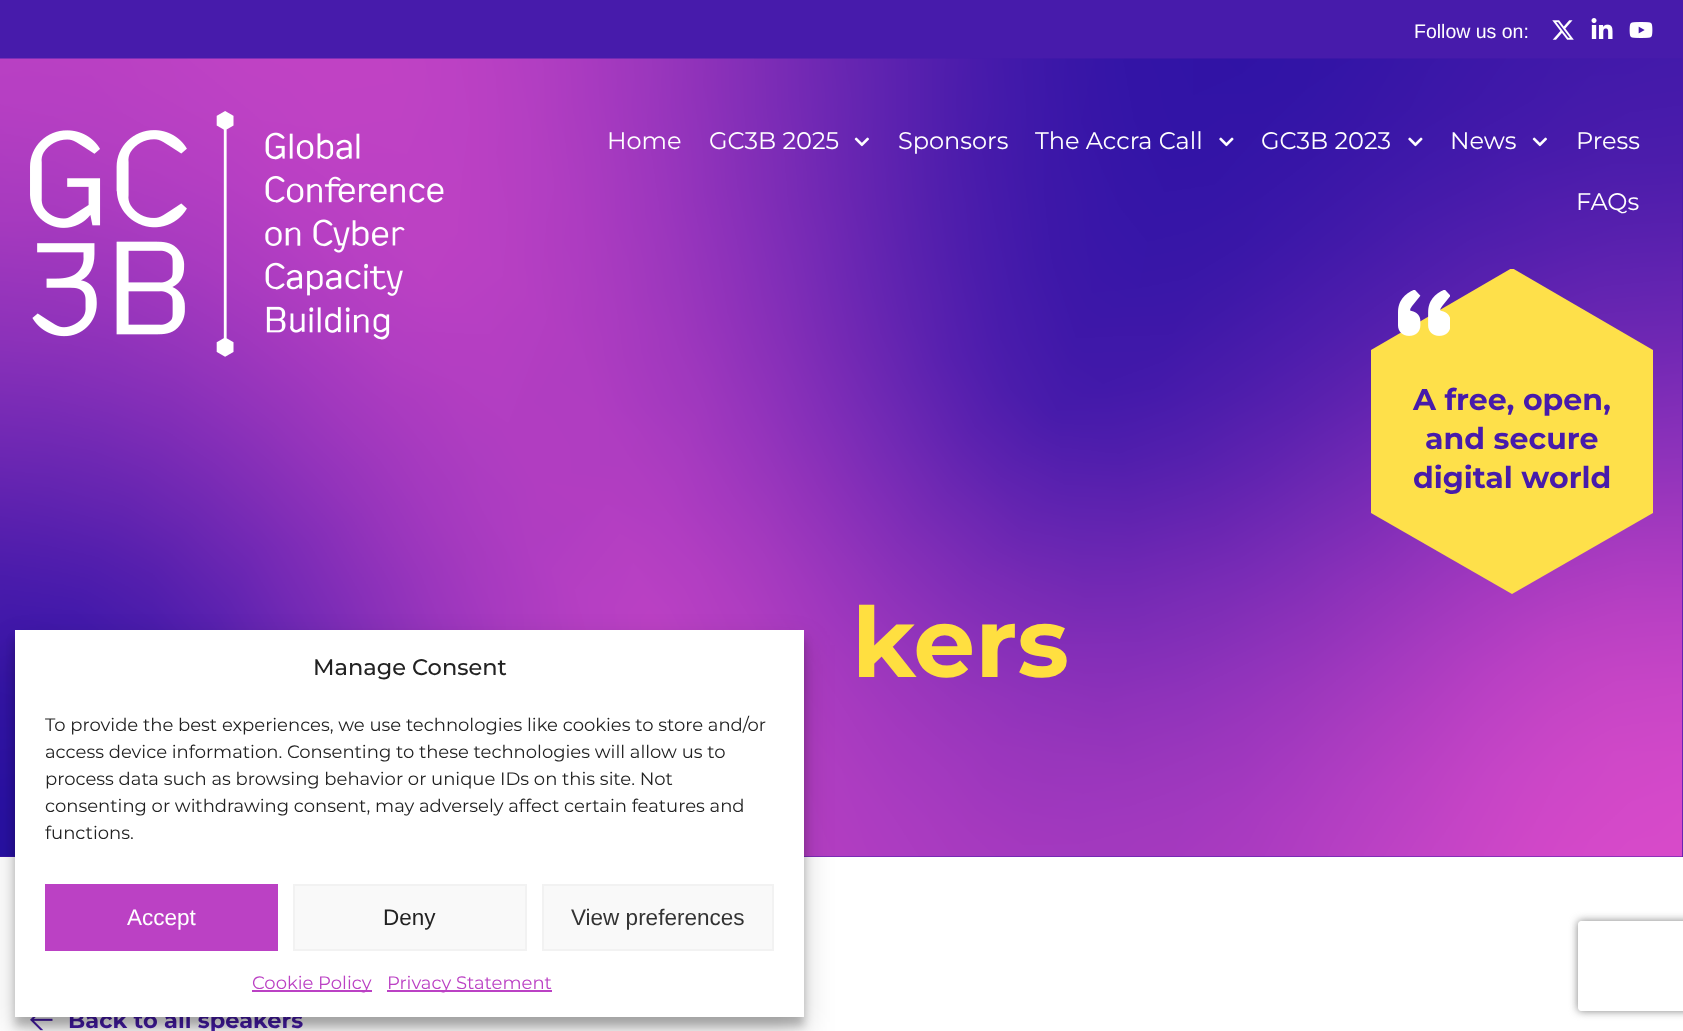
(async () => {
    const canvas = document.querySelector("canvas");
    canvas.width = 1683;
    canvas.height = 1031;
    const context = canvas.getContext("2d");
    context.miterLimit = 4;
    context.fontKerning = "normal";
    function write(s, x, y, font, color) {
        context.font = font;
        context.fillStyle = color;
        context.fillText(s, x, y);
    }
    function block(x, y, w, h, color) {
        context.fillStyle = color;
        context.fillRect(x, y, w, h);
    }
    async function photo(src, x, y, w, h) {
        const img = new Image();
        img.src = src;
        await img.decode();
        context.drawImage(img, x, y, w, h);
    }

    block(0, 0, 1683, 1031, "rgb(255, 255, 255)");
    block(0, 0, 1683, 857, "rgb(71, 27, 171)");
    write("Follow us on:", 1414, 38, "19.5px Liberation Sans", "rgb(255, 255, 255)");
    await photo("media/1.png", 1552, 20, 22, 20);
    await photo("media/2.png", 1591, 18, 22, 21);
    await photo("media/3.png", 1629, 22, 24, 16);
    await photo("media/9.png", 0, 58, 1683, 799);
    await photo("media/4.png", 30, 111, 414, 246);
    write("Home", 607, 149, "24px Montserrat", "rgb(255, 255, 255)");
    write("GC3B 2025", 709, 149, "24px Montserrat", "rgb(255, 255, 255)");
    await photo("media/5.png", 854, 137, 15, 10);
    write("Sponsors", 898, 149, "24px Montserrat", "rgb(255, 255, 255)");
    write("The Accra Call", 1035, 149, "24px Montserrat", "rgb(255, 255, 255)");
    await photo("media/6.png", 1219, 137, 15, 10);
    write("GC3B 2023", 1261, 149, "24px Montserrat", "rgb(255, 255, 255)");
    await photo("media/7.png", 1408, 137, 15, 10);
    write("News", 1450, 149, "24px Montserrat", "rgb(255, 255, 255)");
    await photo("media/8.png", 1532, 137, 15, 10);
    write("Press", 1576, 149, "24px Montserrat", "rgb(255, 255, 255)");
    write("FAQs", 1576, 210, "24px Montserrat", "rgb(255, 255, 255)");
    context.save();
    context.beginPath();
    context.rect(1371, 269, 282, 325);
    context.clip();
    context.fillStyle = "rgb(254, 224, 74)";
    context.beginPath();
    context.moveTo(1512, 268);
    context.lineTo(1371, 350);
    context.lineTo(1371, 513);
    context.lineTo(1512, 594);
    context.lineTo(1653, 513);
    context.lineTo(1653, 350);
    context.closePath();
    context.fill();
    context.restore();
    await photo("media/10.png", 1398, 290, 52, 46);
    write("A free, open,", 1413, 410, "bold 30px Montserrat", "rgb(71, 27, 171)");
    write("and secure", 1425, 449, "bold 30px Montserrat", "rgb(71, 27, 171)");
    write("digital world", 1413, 488, "bold 30px Montserrat", "rgb(71, 27, 171)");
    write("kers", 852, 677, "bold 97.5px Montserrat", "rgb(255, 223, 64)");
    await photo("media/11.png", 30, 1017, 23, 14);
    write("Back to all speakers", 68, 1028, "bold 22.5px Montserrat", "rgb(71, 27, 171)");
    context.fillStyle = "rgba(0, 0, 0, 0.23)";
    context.filter = "blur(4.5px)";
    context.beginPath();
    context.rect(15, 639, 789, 387);
    context.fill();
    context.filter = "none";
    context.fillStyle = "rgba(0, 0, 0, 0.19)";
    context.filter = "blur(15px)";
    context.beginPath();
    context.rect(15, 645, 789, 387);
    context.fill();
    context.filter = "none";
    block(15, 630, 789, 387, "rgb(255, 255, 255)");
    write("Manage Consent", 313, 675, "500 22.5px Montserrat", "rgb(34, 34, 34)");
    write("To provide the best experiences, we use technologies like cookies to store and/or", 45, 731, "18px Montserrat", "rgb(34, 34, 34)");
    write("access device information. Consenting to these technologies will allow us to", 45, 758, "18px Montserrat", "rgb(34, 34, 34)");
    write("process data such as browsing behavior or unique IDs on this site. Not", 45, 785, "18px Montserrat", "rgb(34, 34, 34)");
    write("consenting or withdrawing consent, may adversely affect certain features and", 45, 812, "18px Montserrat", "rgb(34, 34, 34)");
    write("functions.", 45, 839, "18px Montserrat", "rgb(34, 34, 34)");
    block(45, 884, 233, 67, "rgb(187, 65, 196)");
    write("Accept", 127, 925, "22.5px Liberation Sans", "rgb(255, 255, 255)");
    context.fillStyle = "rgb(249, 249, 249)";
    context.beginPath();
    context.rect(294, 885, 232, 65);
    context.fill();
    context.strokeStyle = "rgb(242, 242, 242)";
    context.lineWidth = 2;
    context.stroke();
    write("Deny", 383, 925, "22.5px Liberation Sans", "rgb(34, 34, 34)");
    context.fillStyle = "rgb(249, 249, 249)";
    context.beginPath();
    context.rect(543, 885, 230, 65);
    context.fill();
    context.stroke();
    write("View preferences", 571, 925, "22.5px Liberation Sans", "rgb(51, 51, 51)");
    block(252, 990, 120, 2, "rgb(187, 65, 196)");
    write("Cookie Policy", 252, 989, "18px Montserrat", "rgb(187, 65, 196)");
    block(387, 990, 165, 2, "rgb(187, 65, 196)");
    write("Privacy Statement", 387, 989, "18px Montserrat", "rgb(187, 65, 196)");
    context.save();
    context.beginPath();
    context.moveTo(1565, 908);
    context.lineTo(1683, 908);
    context.lineTo(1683, 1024);
    context.lineTo(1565, 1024);
    context.closePath();
    context.moveTo(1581, 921);
    context.lineTo(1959, 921);
    context.bezierCurveTo(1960.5, 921, 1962, 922.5, 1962, 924);
    context.lineTo(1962, 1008);
    context.bezierCurveTo(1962, 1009.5, 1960.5, 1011, 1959, 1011);
    context.lineTo(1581, 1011);
    context.bezierCurveTo(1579.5, 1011, 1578, 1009.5, 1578, 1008);
    context.lineTo(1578, 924);
    context.bezierCurveTo(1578, 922.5, 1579.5, 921, 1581, 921);
    context.closePath();
    context.clip("evenodd");
    context.fillStyle = "rgb(128, 128, 128)";
    context.filter = "blur(4px)";
    context.beginPath();
    context.roundRect(1578, 921, 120, 90, 3);
    context.fill();
    context.filter = "none";
    context.restore();
})();
